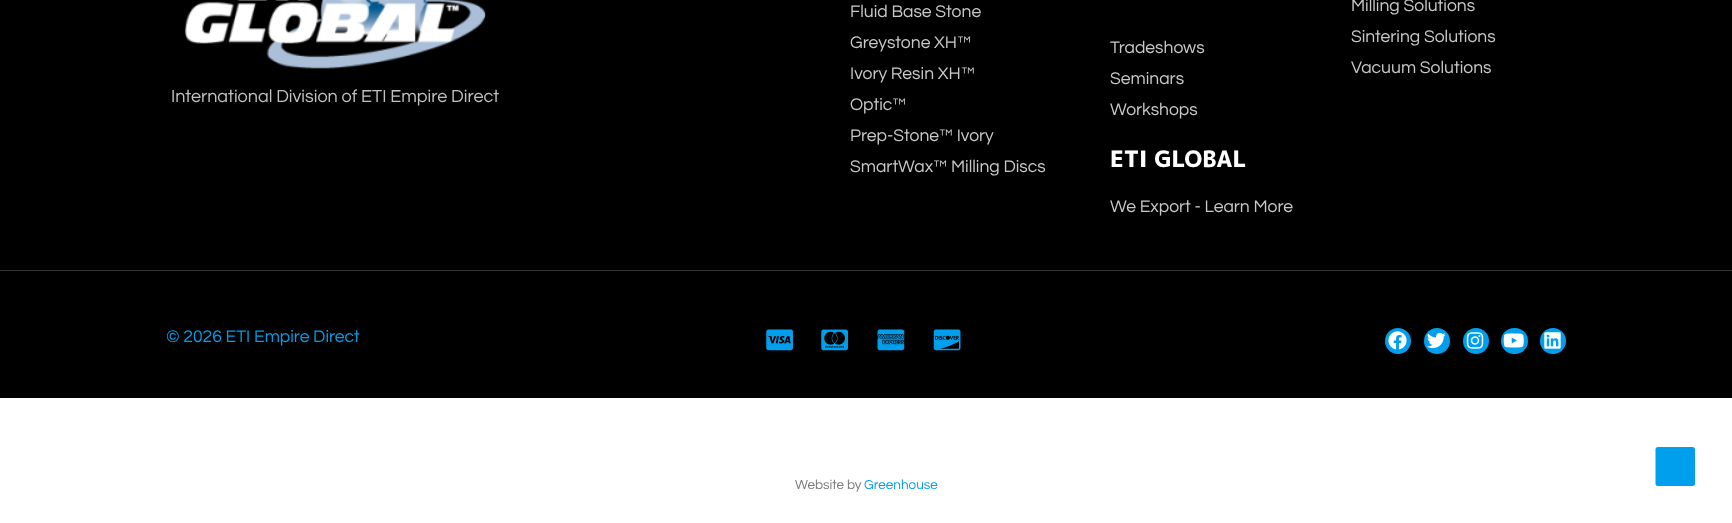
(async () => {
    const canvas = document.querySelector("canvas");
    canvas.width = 1732;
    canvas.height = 523;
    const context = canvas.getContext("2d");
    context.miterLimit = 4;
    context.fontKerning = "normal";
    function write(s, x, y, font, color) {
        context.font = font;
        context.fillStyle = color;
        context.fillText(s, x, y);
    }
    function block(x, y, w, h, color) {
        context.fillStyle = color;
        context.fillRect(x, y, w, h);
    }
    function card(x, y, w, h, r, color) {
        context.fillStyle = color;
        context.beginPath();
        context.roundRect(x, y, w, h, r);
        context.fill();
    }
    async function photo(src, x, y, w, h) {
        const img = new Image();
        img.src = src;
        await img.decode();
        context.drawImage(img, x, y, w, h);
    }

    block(0, 0, 1732, 523, "rgb(255, 255, 255)");
    block(0, 0, 1732, 398, "rgb(0, 0, 0)");
    await photo("media/1.png", 184, 0, 302, 69);
    write("International Division of ETI Empire Direct", 171, 102, "18px Questrial", "rgb(194, 194, 194)");
    write("Fluid Base Stone", 850, 17, "17.5px Questrial", "rgb(201, 201, 201)");
    write("Greystone XH™", 850, 48, "17.5px Questrial", "rgb(201, 201, 201)");
    write("Ivory Resin XH™", 850, 79, "17.5px Questrial", "rgb(201, 201, 201)");
    write("Optic™", 850, 110, "17.5px Questrial", "rgb(201, 201, 201)");
    write("Prep-Stone™ Ivory", 850, 141, "17.5px Questrial", "rgb(201, 201, 201)");
    write("SmartWax™ Milling Discs", 850, 172, "17.5px Questrial", "rgb(201, 201, 201)");
    write("Tradeshows", 1110, 53, "17.5px Questrial", "rgb(201, 201, 201)");
    write("Seminars", 1110, 84, "17.5px Questrial", "rgb(201, 201, 201)");
    write("Workshops", 1110, 115, "17.5px Questrial", "rgb(201, 201, 201)");
    write("ETI GLOBAL", 1110, 167, "800 22.5px 'M PLUS 1p'", "rgb(255, 255, 255)");
    write("We Export - Learn More", 1110, 212, "17.5px Questrial", "rgb(201, 201, 201)");
    write("Milling Solutions", 1351, 11, "17.5px Questrial", "rgb(201, 201, 201)");
    write("Sintering Solutions", 1351, 42, "17.5px Questrial", "rgb(201, 201, 201)");
    write("Vacuum Solutions", 1351, 73, "17.5px Questrial", "rgb(201, 201, 201)");
    block(0, 270, 1732, 1, "rgb(54, 54, 54)");
    write("© 2026 ETI Empire Direct", 166, 342, "17.5px Questrial", "rgb(0, 159, 238)");
    await photo("media/2.png", 766, 329, 27, 22);
    await photo("media/3.png", 821, 329, 27, 22);
    await photo("media/4.png", 877, 329, 28, 22);
    await photo("media/5.png", 933, 329, 28, 22);
    context.beginPath();
    context.arc(1398, 341, 13, 0, Math.PI * 2);
    context.fill();
    await photo("media/6.png", 1388, 331, 19, 19);
    context.beginPath();
    context.arc(1437, 341, 13, 0, Math.PI * 2);
    context.fill();
    await photo("media/7.png", 1427, 332, 19, 17);
    context.beginPath();
    context.arc(1476, 341, 13, 0, Math.PI * 2);
    context.fill();
    await photo("media/8.png", 1466, 332, 18, 17);
    card(1501, 328, 27, 26, 13, "rgb(0, 159, 238)");
    await photo("media/9.png", 1503, 333, 21, 15);
    context.beginPath();
    context.arc(1553, 341, 13, 0, Math.PI * 2);
    context.fill();
    await photo("media/10.png", 1544, 332, 17, 17);
    write("Website by", 795, 489, "13.5px Questrial", "rgb(122, 122, 122)");
    write("Greenhouse", 864, 489, "13.5px Questrial", "rgb(0, 159, 238)");
    context.beginPath();
    context.moveTo(1692.5, 486);
    context.lineTo(1658, 486);
    context.bezierCurveTo(1656.5, 486, 1655.5, 485, 1655.5, 484);
    context.lineTo(1655.5, 449.5);
    context.bezierCurveTo(1655.5, 448, 1656.5, 447, 1658, 447);
    context.lineTo(1692.5, 447);
    context.bezierCurveTo(1694, 447, 1695, 448, 1695, 449.5);
    context.lineTo(1695, 484);
    context.bezierCurveTo(1695, 485, 1694, 486, 1692.5, 486);
    context.closePath();
    context.fill();
})();
